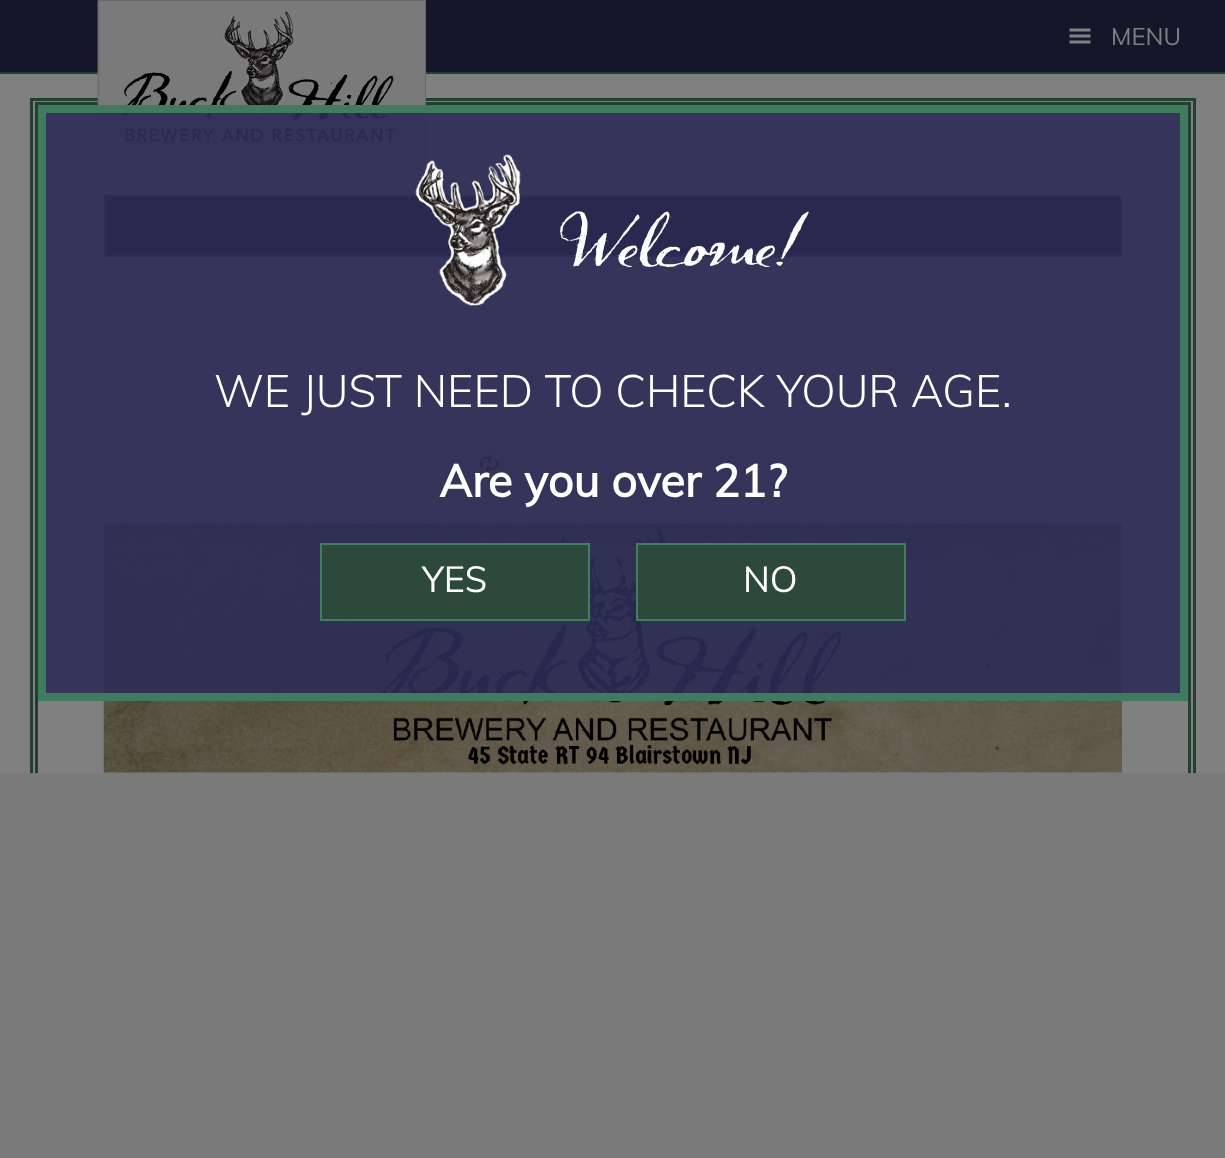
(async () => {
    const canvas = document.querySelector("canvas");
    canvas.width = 1225;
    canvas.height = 1158;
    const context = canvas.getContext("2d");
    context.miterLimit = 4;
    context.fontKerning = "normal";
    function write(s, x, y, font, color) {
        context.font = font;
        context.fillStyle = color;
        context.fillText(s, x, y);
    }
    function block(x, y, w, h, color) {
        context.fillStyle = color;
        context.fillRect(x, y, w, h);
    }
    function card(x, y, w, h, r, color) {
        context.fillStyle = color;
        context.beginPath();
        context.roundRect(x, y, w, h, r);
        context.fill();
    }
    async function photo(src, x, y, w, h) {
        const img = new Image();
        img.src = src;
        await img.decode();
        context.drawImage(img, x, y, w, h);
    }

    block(0, 0, 1225, 1158, "rgb(122, 122, 122)");
    block(0, 74, 1225, 699, "rgb(128, 128, 128)");
    block(0, 0, 1225, 72, "rgb(22, 22, 43)");
    block(0, 72, 1225, 2, "rgb(33, 64, 48)");
    context.save();
    context.beginPath();
    context.rect(0, 0, 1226, 773);
    context.clip();
    context.strokeStyle = "rgb(33, 64, 48)";
    context.lineWidth = 3;
    context.strokeRect(31.5, 99.5, 1163, 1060);
    context.strokeRect(36.5, 103.5, 1153, 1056);
    context.restore();
    await photo("media/1.png", 97, 0, 329, 159);
    await photo("media/2.png", 1069, 28, 22, 16);
    write("MENU", 1111, 45, "24px Muli", "rgb(128, 128, 128)");
    context.fillStyle = "rgb(18, 16, 16)";
    context.beginPath();
    context.rect(105, 196, 1016, 60);
    context.fill();
    context.strokeStyle = "rgb(33, 64, 48)";
    context.lineWidth = 2;
    context.stroke();
    card(456, 435, 314, 59, 29.5, "rgb(124, 123, 123)");
    await photo("media/3.png", 480, 455, 18, 18);
    await photo("media/4.png", 103, 523, 1019, 250);
    context.fillStyle = "rgba(44, 44, 86, 0.9)";
    context.beginPath();
    context.rect(42, 109, 1142, 588);
    context.fill();
    context.strokeStyle = "rgb(64, 123, 96)";
    context.lineWidth = 8;
    context.stroke();
    await photo("media/5.png", 415, 154, 106, 152);
    write("Welcome!", 560, 266, "120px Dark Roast", "rgb(255, 255, 255)");
    write("WE JUST NEED TO CHECK YOUR AGE.", 214, 407, "300 45px Muli", "rgb(255, 255, 255)");
    write("Are you over 21?", 439, 497, "bold 45px Muli", "rgb(255, 255, 255)");
    context.fillStyle = "rgb(45, 73, 59)";
    context.beginPath();
    context.rect(321, 544, 268, 76);
    context.fill();
    context.strokeStyle = "rgb(65, 127, 96)";
    context.lineWidth = 2;
    context.stroke();
    write("YES", 422, 592, "36px Muli", "rgb(255, 255, 255)");
    context.fillStyle = "rgb(45, 73, 59)";
    context.beginPath();
    context.rect(637, 544, 268, 76);
    context.fill();
    context.stroke();
    write("NO", 743, 592, "36px Muli", "rgb(255, 255, 255)");
})();
